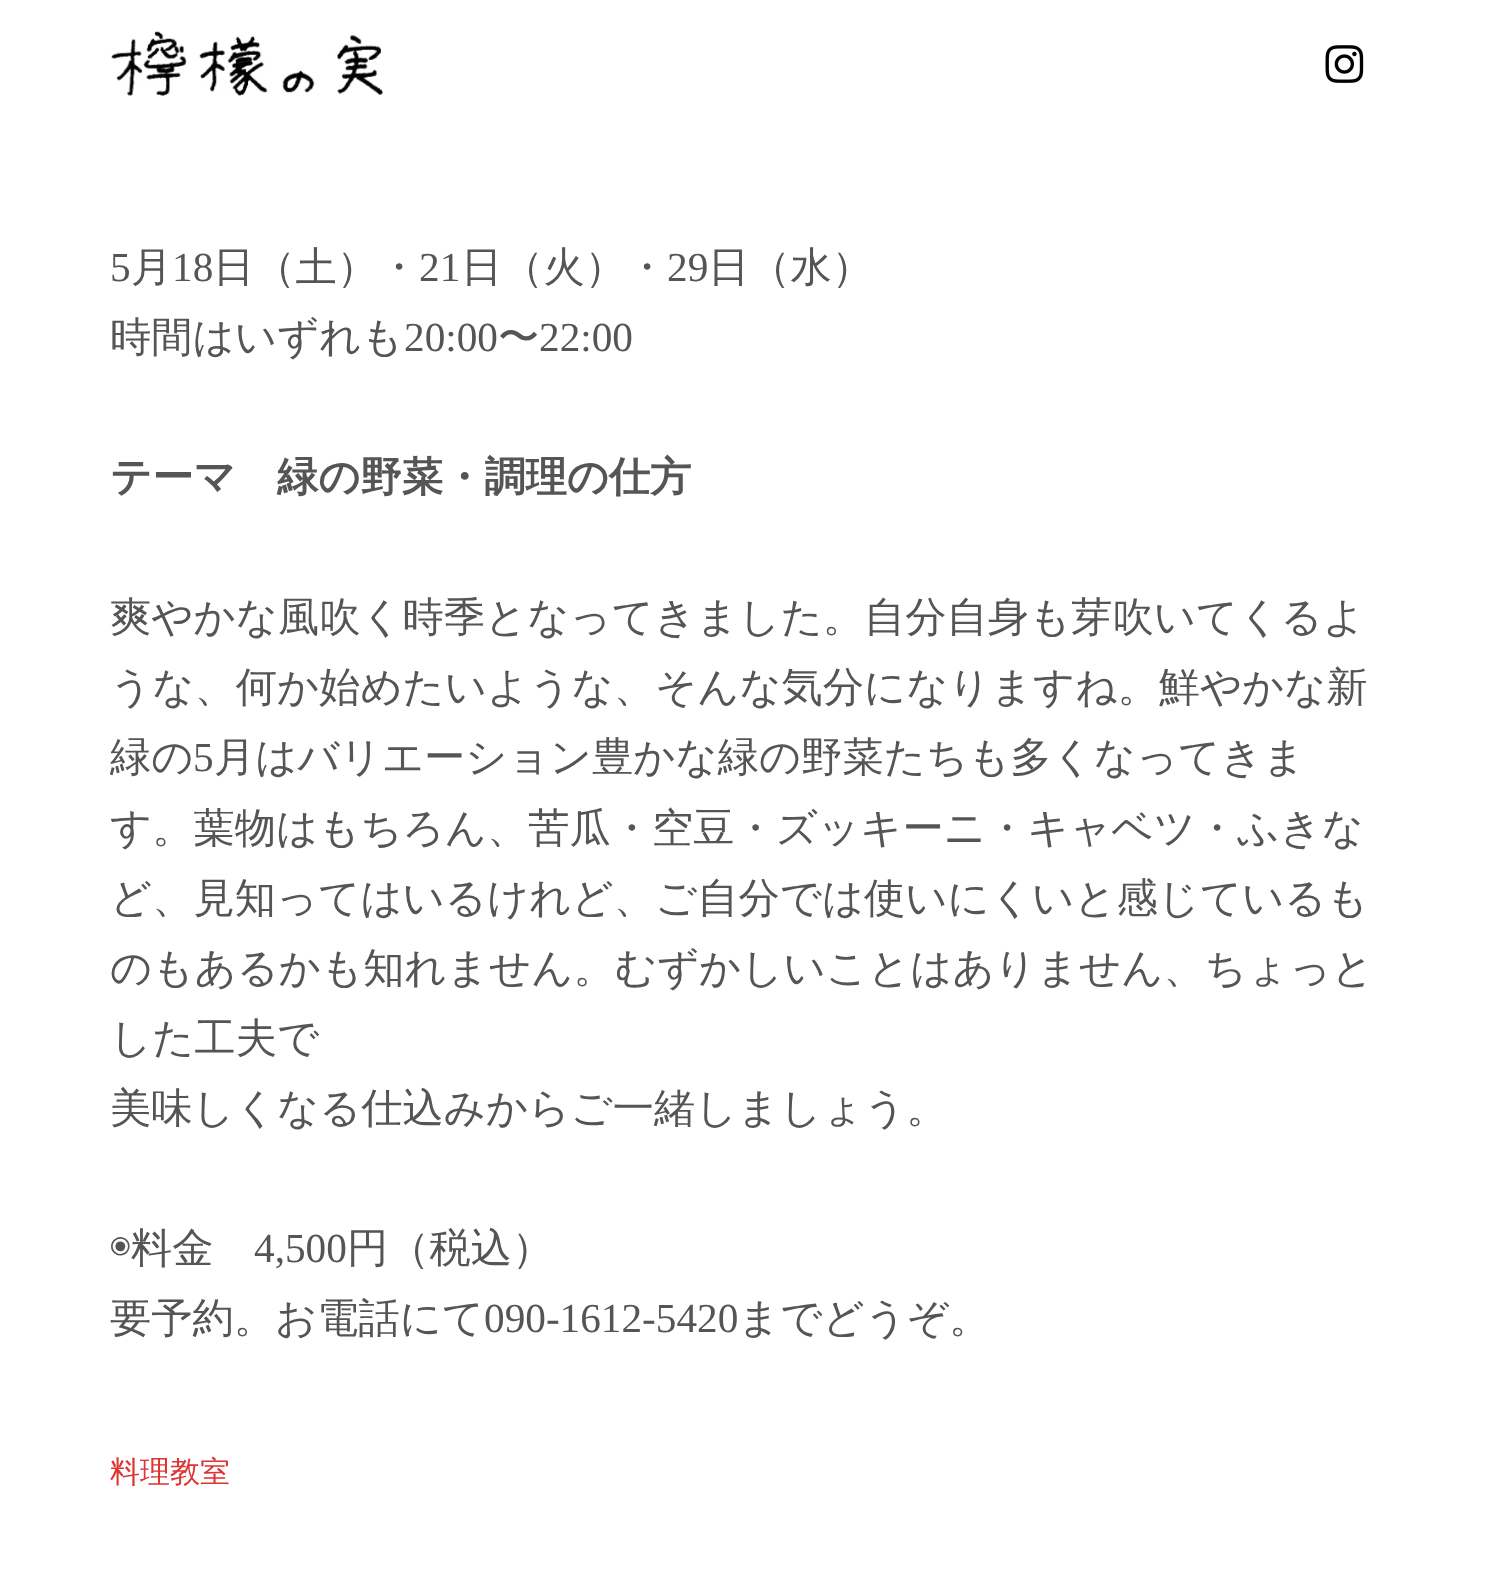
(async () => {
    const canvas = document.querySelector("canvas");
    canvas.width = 1488;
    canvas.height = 1570;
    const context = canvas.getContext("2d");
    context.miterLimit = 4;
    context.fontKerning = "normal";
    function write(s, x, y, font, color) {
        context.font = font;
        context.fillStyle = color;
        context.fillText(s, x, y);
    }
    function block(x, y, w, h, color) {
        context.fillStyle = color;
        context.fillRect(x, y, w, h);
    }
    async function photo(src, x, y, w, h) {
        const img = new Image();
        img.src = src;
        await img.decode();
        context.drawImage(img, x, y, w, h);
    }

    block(0, 0, 1488, 1570, "rgb(255, 255, 255)");
    await photo("media/1.png", 111, 31, 272, 65);
    await photo("media/2.png", 1325, 45, 39, 38);
    write("5", 110, 281, "41.25px Liberation Serif", "rgb(85, 85, 85)");
    write("月", 131, 281, "500 41.25px WenQuanYi Zen Hei", "rgb(85, 85, 85)");
    write("18", 172, 281, "41.25px Liberation Serif", "rgb(85, 85, 85)");
    write("日（土）・", 213, 281, "500 41.25px WenQuanYi Zen Hei", "rgb(85, 85, 85)");
    write("21", 419, 281, "41.25px Liberation Serif", "rgb(85, 85, 85)");
    write("日（火）・", 461, 281, "500 41.25px WenQuanYi Zen Hei", "rgb(85, 85, 85)");
    write("29", 667, 281, "41.25px Liberation Serif", "rgb(85, 85, 85)");
    write("日（水）", 708, 281, "500 41.25px WenQuanYi Zen Hei", "rgb(85, 85, 85)");
    write("時間はいずれも", 110, 351, "500 41.25px WenQuanYi Zen Hei", "rgb(85, 85, 85)");
    write("20:00", 404, 351, "41.25px Liberation Serif", "rgb(85, 85, 85)");
    write("〜", 498, 351, "500 41.25px WenQuanYi Zen Hei", "rgb(85, 85, 85)");
    write("22:00", 539, 351, "41.25px Liberation Serif", "rgb(85, 85, 85)");
    write("テーマ　緑の野菜・調理の仕方", 110, 491, "bold 41.25px WenQuanYi Zen Hei", "rgb(85, 85, 85)");
    write("爽やかな風吹く時季となってきました。自分自身も芽吹いてくるよ", 110, 631, "500 41.25px WenQuanYi Zen Hei", "rgb(85, 85, 85)");
    write("うな、何か始めたいような、そんな気分になりますね。鮮やかな新", 110, 701, "500 41.25px WenQuanYi Zen Hei", "rgb(85, 85, 85)");
    write("緑の", 110, 771, "500 41.25px WenQuanYi Zen Hei", "rgb(85, 85, 85)");
    write("5", 193, 771, "41.25px Liberation Serif", "rgb(85, 85, 85)");
    write("月はバリエーション豊かな緑の野菜たちも多くなってきま", 214, 771, "500 41.25px WenQuanYi Zen Hei", "rgb(85, 85, 85)");
    write("す。葉物はもちろん、苦瓜・空豆・ズッキーニ・キャベツ・ふきな", 110, 842, "500 41.25px WenQuanYi Zen Hei", "rgb(85, 85, 85)");
    write("ど、見知ってはいるけれど、ご自分では使いにくいと感じているも", 110, 912, "500 41.25px WenQuanYi Zen Hei", "rgb(85, 85, 85)");
    write("のもあるかも知れません。むずかしいことはありません、ちょっと", 110, 982, "500 41.25px WenQuanYi Zen Hei", "rgb(85, 85, 85)");
    write("した工夫で", 110, 1052, "500 41.25px WenQuanYi Zen Hei", "rgb(85, 85, 85)");
    write("美味しくなる仕込みからご一緒しましょう。", 110, 1122, "500 41.25px WenQuanYi Zen Hei", "rgb(85, 85, 85)");
    write("◉", 110, 1262, "41.25px IPAPGothic", "rgb(85, 85, 85)");
    write("料金", 131, 1262, "500 41.25px WenQuanYi Zen Hei", "rgb(85, 85, 85)");
    write("4,500", 254, 1262, "41.25px Liberation Serif", "rgb(85, 85, 85)");
    write("円（税込）", 347, 1262, "500 41.25px WenQuanYi Zen Hei", "rgb(85, 85, 85)");
    write("要予約。お電話にて", 110, 1332, "500 41.25px WenQuanYi Zen Hei", "rgb(85, 85, 85)");
    write("090-1612-5420", 484, 1332, "41.25px Liberation Serif", "rgb(85, 85, 85)");
    write("までどうぞ。", 738, 1332, "500 41.25px WenQuanYi Zen Hei", "rgb(85, 85, 85)");
    write("料理教室", 110, 1482, "500 30px WenQuanYi Zen Hei", "rgb(221, 51, 51)");
})();
